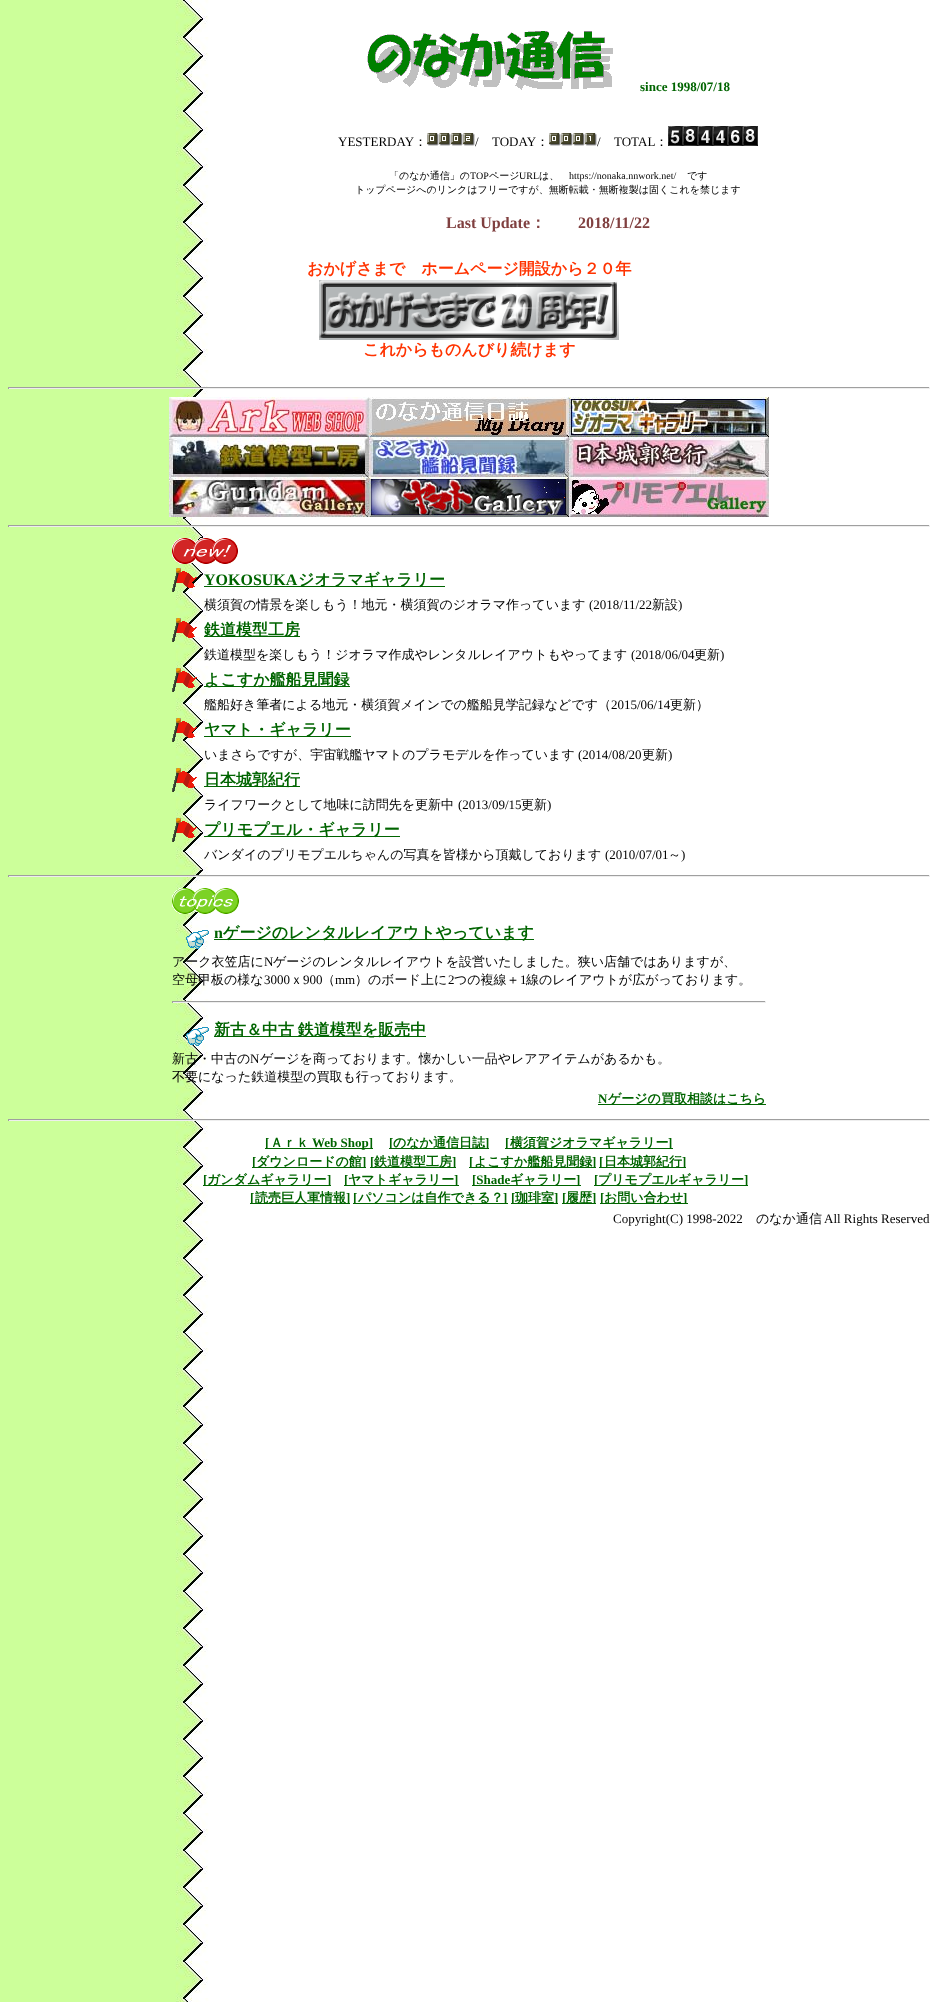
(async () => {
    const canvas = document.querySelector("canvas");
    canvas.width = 938;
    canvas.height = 2002;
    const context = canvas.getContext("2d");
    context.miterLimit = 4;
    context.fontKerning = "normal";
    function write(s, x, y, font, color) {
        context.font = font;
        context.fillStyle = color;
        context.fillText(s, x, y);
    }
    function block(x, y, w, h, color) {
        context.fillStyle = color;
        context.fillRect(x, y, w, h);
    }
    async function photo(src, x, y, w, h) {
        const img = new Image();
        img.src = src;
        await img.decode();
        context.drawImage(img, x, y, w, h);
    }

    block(0, 0, 938, 2002, "rgb(255, 255, 255)");
    await photo("media/1.png", 0, 0, 938, 2002);
    await photo("media/2.png", 367, 31, 246, 59);
    write("since 1998/07/18", 640, 91, "bold 13px Liberation Serif", "rgb(0, 100, 0)");
    write("YESTERDAY", 338, 146, "13px Liberation Serif", "rgb(0, 0, 0)");
    write("：", 414, 146, "500 13px WenQuanYi Zen Hei", "rgb(0, 0, 0)");
    await photo("media/3.png", 427, 133, 48, 13);
    write("/", 475, 146, "13px Liberation Serif", "rgb(0, 0, 0)");
    write("TODAY", 492, 146, "13px Liberation Serif", "rgb(0, 0, 0)");
    write("：", 536, 146, "500 13px WenQuanYi Zen Hei", "rgb(0, 0, 0)");
    await photo("media/4.png", 549, 133, 48, 13);
    write("/", 597, 146, "13px Liberation Serif", "rgb(0, 0, 0)");
    write("TOTAL", 614, 146, "13px Liberation Serif", "rgb(0, 0, 0)");
    write("：", 655, 146, "500 13px WenQuanYi Zen Hei", "rgb(0, 0, 0)");
    await photo("media/5.png", 668, 126, 90, 20);
    write("「のなか通信」の", 389, 179, "500 10px WenQuanYi Zen Hei", "rgb(0, 0, 0)");
    write("TOP", 470, 179, "10px Liberation Serif", "rgb(0, 0, 0)");
    write("ページ", 489, 179, "500 10px WenQuanYi Zen Hei", "rgb(0, 0, 0)");
    write("URL", 519, 179, "10px Liberation Serif", "rgb(0, 0, 0)");
    write("は、", 539, 179, "500 10px WenQuanYi Zen Hei", "rgb(0, 0, 0)");
    write("https://nonaka.nnwork.net/", 569, 179, "10px Liberation Serif", "rgb(0, 0, 0)");
    write("です", 687, 179, "500 10px WenQuanYi Zen Hei", "rgb(0, 0, 0)");
    write("トップページへのリンクはフリーですが、無断転載・無断複製は固くこれを禁じます", 355, 193, "500 10px WenQuanYi Zen Hei", "rgb(0, 0, 0)");
    write("Last Update", 446, 228, "bold 16px Liberation Serif", "rgb(128, 64, 64)");
    write("：", 530, 228, "bold 16px WenQuanYi Zen Hei", "rgb(128, 64, 64)");
    write("2018/11/22", 578, 228, "bold 16px Liberation Serif", "rgb(128, 64, 64)");
    write("おかげさまで　ホームページ開設から２０年", 307, 274, "bold 16px WenQuanYi Zen Hei", "rgb(255, 51, 0)");
    await photo("media/6.png", 319, 280, 300, 60);
    write("これからものんびり続けます", 363, 355, "bold 16px WenQuanYi Zen Hei", "rgb(255, 51, 0)");
    block(8, 387, 922, 1, "rgb(159, 159, 159)");
    block(929, 387, 1, 2, "rgb(238, 238, 238)");
    block(8, 388, 922, 1, "rgb(238, 238, 238)");
    block(8, 387, 1, 2, "rgb(159, 159, 159)");
    await photo("media/7.png", 169, 397, 200, 40);
    await photo("media/8.png", 369, 397, 200, 40);
    await photo("media/9.png", 569, 397, 200, 40);
    await photo("media/10.png", 169, 437, 200, 40);
    await photo("media/11.png", 369, 437, 200, 40);
    await photo("media/12.png", 569, 437, 200, 40);
    await photo("media/13.png", 169, 477, 200, 40);
    await photo("media/14.png", 369, 477, 200, 40);
    await photo("media/15.png", 569, 477, 200, 40);
    block(8, 525, 922, 1, "rgb(159, 159, 159)");
    block(929, 525, 1, 2, "rgb(238, 238, 238)");
    block(8, 526, 922, 1, "rgb(238, 238, 238)");
    block(8, 525, 1, 2, "rgb(159, 159, 159)");
    await photo("media/16.png", 172, 538, 66, 26);
    await photo("media/17.png", 172, 568, 25, 24);
    write("YOKOSUKA", 204, 585, "bold 16px Liberation Serif", "rgb(0, 100, 0)");
    block(204, 586, 241, 1, "rgb(0, 100, 0)");
    write("ジオラマギャラリー", 298, 585, "bold 16px WenQuanYi Zen Hei", "rgb(0, 100, 0)");
    write("横須賀の情景を楽しもう！地元・横須賀のジオラマ作っています", 204, 609, "500 13px WenQuanYi Zen Hei", "rgb(0, 0, 0)");
    write("(2018/11/22", 589, 609, "13px Liberation Serif", "rgb(0, 0, 0)");
    write("新設", 652, 609, "500 13px WenQuanYi Zen Hei", "rgb(0, 0, 0)");
    write(")", 678, 609, "13px Liberation Serif", "rgb(0, 0, 0)");
    await photo("media/18.png", 172, 618, 25, 24);
    block(204, 636, 96, 1, "rgb(0, 100, 0)");
    write("鉄道模型工房", 204, 635, "bold 16px WenQuanYi Zen Hei", "rgb(0, 100, 0)");
    write("鉄道模型を楽しもう！ジオラマ作成やレンタルレイアウトもやってます", 204, 659, "500 13px WenQuanYi Zen Hei", "rgb(0, 0, 0)");
    write("(2018/06/04", 631, 659, "13px Liberation Serif", "rgb(0, 0, 0)");
    write("更新", 694, 659, "500 13px WenQuanYi Zen Hei", "rgb(0, 0, 0)");
    write(")", 720, 659, "13px Liberation Serif", "rgb(0, 0, 0)");
    await photo("media/19.png", 172, 668, 25, 24);
    block(204, 686, 146, 1, "rgb(0, 100, 0)");
    write("よこすか艦船見聞録", 204, 685, "bold 16px WenQuanYi Zen Hei", "rgb(0, 100, 0)");
    write("艦船好き筆者による地元・横須賀メインでの艦船見学記録などです（", 204, 709, "500 13px WenQuanYi Zen Hei", "rgb(0, 0, 0)");
    write("2015/06/14", 611, 709, "13px Liberation Serif", "rgb(0, 0, 0)");
    write("更新）", 670, 709, "500 13px WenQuanYi Zen Hei", "rgb(0, 0, 0)");
    await photo("media/20.png", 172, 718, 25, 24);
    block(204, 736, 147, 1, "rgb(0, 100, 0)");
    write("ヤマト・ギャラリー", 204, 735, "bold 16px WenQuanYi Zen Hei", "rgb(0, 100, 0)");
    write("いまさらですが、宇宙戦艦ヤマトのプラモデルを作っています", 204, 759, "500 13px WenQuanYi Zen Hei", "rgb(0, 0, 0)");
    write("(2014/08/20", 578, 759, "13px Liberation Serif", "rgb(0, 0, 0)");
    write("更新", 642, 759, "500 13px WenQuanYi Zen Hei", "rgb(0, 0, 0)");
    write(")", 668, 759, "13px Liberation Serif", "rgb(0, 0, 0)");
    await photo("media/21.png", 172, 768, 25, 24);
    block(204, 786, 96, 1, "rgb(0, 100, 0)");
    write("日本城郭紀行", 204, 785, "bold 16px WenQuanYi Zen Hei", "rgb(0, 100, 0)");
    write("ライフワークとして地味に訪問先を更新中", 204, 809, "500 13px WenQuanYi Zen Hei", "rgb(0, 0, 0)");
    write("(2013/09/15", 458, 809, "13px Liberation Serif", "rgb(0, 0, 0)");
    write("更新", 521, 809, "500 13px WenQuanYi Zen Hei", "rgb(0, 0, 0)");
    write(")", 547, 809, "13px Liberation Serif", "rgb(0, 0, 0)");
    await photo("media/22.png", 172, 818, 25, 24);
    block(204, 836, 196, 1, "rgb(0, 100, 0)");
    write("プリモプエル・ギャラリー", 204, 835, "bold 16px WenQuanYi Zen Hei", "rgb(0, 100, 0)");
    write("バンダイのプリモプエルちゃんの写真を皆様から頂戴しております", 204, 859, "500 13px WenQuanYi Zen Hei", "rgb(0, 0, 0)");
    write("(2010/07/01", 605, 859, "13px Liberation Serif", "rgb(0, 0, 0)");
    write("～", 668, 859, "500 13px WenQuanYi Zen Hei", "rgb(0, 0, 0)");
    write(")", 681, 859, "13px Liberation Serif", "rgb(0, 0, 0)");
    block(8, 875, 922, 1, "rgb(159, 159, 159)");
    block(929, 875, 1, 2, "rgb(238, 238, 238)");
    block(8, 876, 922, 1, "rgb(238, 238, 238)");
    block(8, 875, 1, 2, "rgb(159, 159, 159)");
    await photo("media/23.png", 172, 888, 67, 26);
    await photo("media/24.png", 186, 930, 23, 19);
    write("n", 214, 938, "bold 16px Liberation Serif", "rgb(0, 100, 0)");
    block(214, 939, 320, 1, "rgb(0, 100, 0)");
    write("ゲージのレンタルレイアウトやっています", 223, 938, "bold 16px WenQuanYi Zen Hei", "rgb(0, 100, 0)");
    write("アーク衣笠店に", 172, 966, "500 13px WenQuanYi Zen Hei", "rgb(0, 0, 0)");
    write("N", 264, 966, "13px Liberation Serif", "rgb(0, 0, 0)");
    write("ゲージのレンタルレイアウトを設営いたしました。狭い店舗ではありますが、", 273, 966, "500 13px WenQuanYi Zen Hei", "rgb(0, 0, 0)");
    write("空母甲板の様な", 172, 984, "500 13px WenQuanYi Zen Hei", "rgb(0, 0, 0)");
    write("3000", 264, 984, "13px Liberation Serif", "rgb(0, 0, 0)");
    write("ｘ", 290, 984, "500 13px WenQuanYi Zen Hei", "rgb(0, 0, 0)");
    write("900", 303, 984, "13px Liberation Serif", "rgb(0, 0, 0)");
    write("（", 322, 984, "500 13px WenQuanYi Zen Hei", "rgb(0, 0, 0)");
    write("mm", 335, 984, "13px Liberation Serif", "rgb(0, 0, 0)");
    write("）のボード上に", 355, 984, "500 13px WenQuanYi Zen Hei", "rgb(0, 0, 0)");
    write("2", 448, 984, "13px Liberation Serif", "rgb(0, 0, 0)");
    write("つの複線＋", 454, 984, "500 13px WenQuanYi Zen Hei", "rgb(0, 0, 0)");
    write("1", 520, 984, "13px Liberation Serif", "rgb(0, 0, 0)");
    write("線のレイアウトが広がっております。", 526, 984, "500 13px WenQuanYi Zen Hei", "rgb(0, 0, 0)");
    block(172, 1001, 594, 1, "rgb(159, 159, 159)");
    block(765, 1001, 1, 2, "rgb(238, 238, 238)");
    block(172, 1002, 594, 1, "rgb(238, 238, 238)");
    block(172, 1001, 1, 2, "rgb(159, 159, 159)");
    await photo("media/25.png", 186, 1027, 23, 19);
    block(214, 1036, 212, 1, "rgb(0, 100, 0)");
    context.wordSpacing = "-1px";
    write("新古＆中古 鉄道模型を販売中", 214, 1035, "bold 16px WenQuanYi Zen Hei", "rgb(0, 100, 0)");
    context.wordSpacing = "0px";
    write("新古・中古の", 172, 1063, "500 13px WenQuanYi Zen Hei", "rgb(0, 0, 0)");
    write("N", 250, 1063, "13px Liberation Serif", "rgb(0, 0, 0)");
    write("ゲージを商っております。懐かしい一品やレアアイテムがあるかも。", 260, 1063, "500 13px WenQuanYi Zen Hei", "rgb(0, 0, 0)");
    write("不要になった鉄道模型の買取も行っております。", 172, 1081, "500 13px WenQuanYi Zen Hei", "rgb(0, 0, 0)");
    write("N", 598, 1103, "bold 13px Liberation Serif", "rgb(0, 100, 0)");
    block(598, 1104, 168, 1, "rgb(0, 100, 0)");
    write("ゲージの買取相談はこちら", 608, 1103, "bold 13px WenQuanYi Zen Hei", "rgb(0, 100, 0)");
    block(8, 1119, 922, 1, "rgb(159, 159, 159)");
    block(929, 1119, 1, 2, "rgb(238, 238, 238)");
    block(8, 1120, 922, 1, "rgb(238, 238, 238)");
    block(8, 1119, 1, 2, "rgb(159, 159, 159)");
    block(265, 1148, 108, 1, "rgb(0, 100, 0)");
    write("[", 265, 1147, "bold 13px Liberation Serif", "rgb(0, 100, 0)");
    write("Ａｒｋ", 270, 1147, "bold 13px WenQuanYi Zen Hei", "rgb(0, 100, 0)");
    write("Web Shop]", 312, 1147, "bold 13px Liberation Serif", "rgb(0, 100, 0)");
    block(389, 1148, 100, 1, "rgb(0, 100, 0)");
    write("[", 389, 1147, "bold 13px Liberation Serif", "rgb(0, 100, 0)");
    write("のなか通信日誌", 393, 1147, "bold 13px WenQuanYi Zen Hei", "rgb(0, 100, 0)");
    write("]", 485, 1147, "bold 13px Liberation Serif", "rgb(0, 100, 0)");
    block(505, 1148, 168, 1, "rgb(0, 100, 0)");
    write("[", 505, 1147, "bold 13px Liberation Serif", "rgb(0, 100, 0)");
    write("横須賀ジオラマギャラリー", 510, 1147, "bold 13px WenQuanYi Zen Hei", "rgb(0, 100, 0)");
    write("]", 668, 1147, "bold 13px Liberation Serif", "rgb(0, 100, 0)");
    block(252, 1167, 114, 1, "rgb(0, 100, 0)");
    write("[", 252, 1166, "bold 13px Liberation Serif", "rgb(0, 100, 0)");
    write("ダウンロードの館", 256, 1166, "bold 13px WenQuanYi Zen Hei", "rgb(0, 100, 0)");
    write("]", 362, 1166, "bold 13px Liberation Serif", "rgb(0, 100, 0)");
    block(370, 1167, 86, 1, "rgb(0, 100, 0)");
    write("[", 370, 1166, "bold 13px Liberation Serif", "rgb(0, 100, 0)");
    write("鉄道模型工房", 374, 1166, "bold 13px WenQuanYi Zen Hei", "rgb(0, 100, 0)");
    write("]", 452, 1166, "bold 13px Liberation Serif", "rgb(0, 100, 0)");
    block(469, 1167, 127, 1, "rgb(0, 100, 0)");
    write("[", 469, 1166, "bold 13px Liberation Serif", "rgb(0, 100, 0)");
    write("よこすか艦船見聞録", 474, 1166, "bold 13px WenQuanYi Zen Hei", "rgb(0, 100, 0)");
    write("]", 592, 1166, "bold 13px Liberation Serif", "rgb(0, 100, 0)");
    block(599, 1167, 87, 1, "rgb(0, 100, 0)");
    write("[", 599, 1166, "bold 13px Liberation Serif", "rgb(0, 100, 0)");
    write("日本城郭紀行", 604, 1166, "bold 13px WenQuanYi Zen Hei", "rgb(0, 100, 0)");
    write("]", 682, 1166, "bold 13px Liberation Serif", "rgb(0, 100, 0)");
    block(203, 1185, 128, 1, "rgb(0, 100, 0)");
    write("[", 203, 1184, "bold 13px Liberation Serif", "rgb(0, 100, 0)");
    write("ガンダムギャラリー", 207, 1184, "bold 13px WenQuanYi Zen Hei", "rgb(0, 100, 0)");
    write("]", 327, 1184, "bold 13px Liberation Serif", "rgb(0, 100, 0)");
    block(344, 1185, 115, 1, "rgb(0, 100, 0)");
    write("[", 344, 1184, "bold 13px Liberation Serif", "rgb(0, 100, 0)");
    write("ヤマトギャラリー", 348, 1184, "bold 13px WenQuanYi Zen Hei", "rgb(0, 100, 0)");
    write("]", 454, 1184, "bold 13px Liberation Serif", "rgb(0, 100, 0)");
    block(472, 1185, 109, 1, "rgb(0, 100, 0)");
    write("[Shade", 472, 1184, "bold 13px Liberation Serif", "rgb(0, 100, 0)");
    write("ギャラリー", 510, 1184, "bold 13px WenQuanYi Zen Hei", "rgb(0, 100, 0)");
    write("]", 576, 1184, "bold 13px Liberation Serif", "rgb(0, 100, 0)");
    block(594, 1185, 154, 1, "rgb(0, 100, 0)");
    write("[", 594, 1184, "bold 13px Liberation Serif", "rgb(0, 100, 0)");
    write("プリモプエルギャラリー", 598, 1184, "bold 13px WenQuanYi Zen Hei", "rgb(0, 100, 0)");
    write("]", 744, 1184, "bold 13px Liberation Serif", "rgb(0, 100, 0)");
    block(250, 1203, 100, 1, "rgb(0, 100, 0)");
    write("[", 250, 1202, "bold 13px Liberation Serif", "rgb(0, 100, 0)");
    write("読売巨人軍情報", 255, 1202, "bold 13px WenQuanYi Zen Hei", "rgb(0, 100, 0)");
    write("]", 346, 1202, "bold 13px Liberation Serif", "rgb(0, 100, 0)");
    block(353, 1203, 155, 1, "rgb(0, 100, 0)");
    write("[", 353, 1202, "bold 13px Liberation Serif", "rgb(0, 100, 0)");
    write("パソコンは自作できる？", 358, 1202, "bold 13px WenQuanYi Zen Hei", "rgb(0, 100, 0)");
    write("]", 503, 1202, "bold 13px Liberation Serif", "rgb(0, 100, 0)");
    block(511, 1203, 47, 1, "rgb(0, 100, 0)");
    write("[", 511, 1202, "bold 13px Liberation Serif", "rgb(0, 100, 0)");
    write("珈琲室", 515, 1202, "bold 13px WenQuanYi Zen Hei", "rgb(0, 100, 0)");
    write("]", 554, 1202, "bold 13px Liberation Serif", "rgb(0, 100, 0)");
    block(562, 1203, 34, 1, "rgb(0, 100, 0)");
    write("[", 562, 1202, "bold 13px Liberation Serif", "rgb(0, 100, 0)");
    write("履歴", 566, 1202, "bold 13px WenQuanYi Zen Hei", "rgb(0, 100, 0)");
    write("]", 592, 1202, "bold 13px Liberation Serif", "rgb(0, 100, 0)");
    block(600, 1203, 88, 1, "rgb(0, 100, 0)");
    write("[", 600, 1202, "bold 13px Liberation Serif", "rgb(0, 100, 0)");
    write("お問い合わせ", 604, 1202, "bold 13px WenQuanYi Zen Hei", "rgb(0, 100, 0)");
    write("]", 683, 1202, "bold 13px Liberation Serif", "rgb(0, 100, 0)");
    write("Copyright(C) 1998-2022", 613, 1223, "13px Liberation Serif", "rgb(0, 0, 0)");
    write("のなか通信", 756, 1223, "500 13px WenQuanYi Zen Hei", "rgb(0, 0, 0)");
    write("All Rights Reserved", 824, 1223, "13px Liberation Serif", "rgb(0, 0, 0)");
})();
